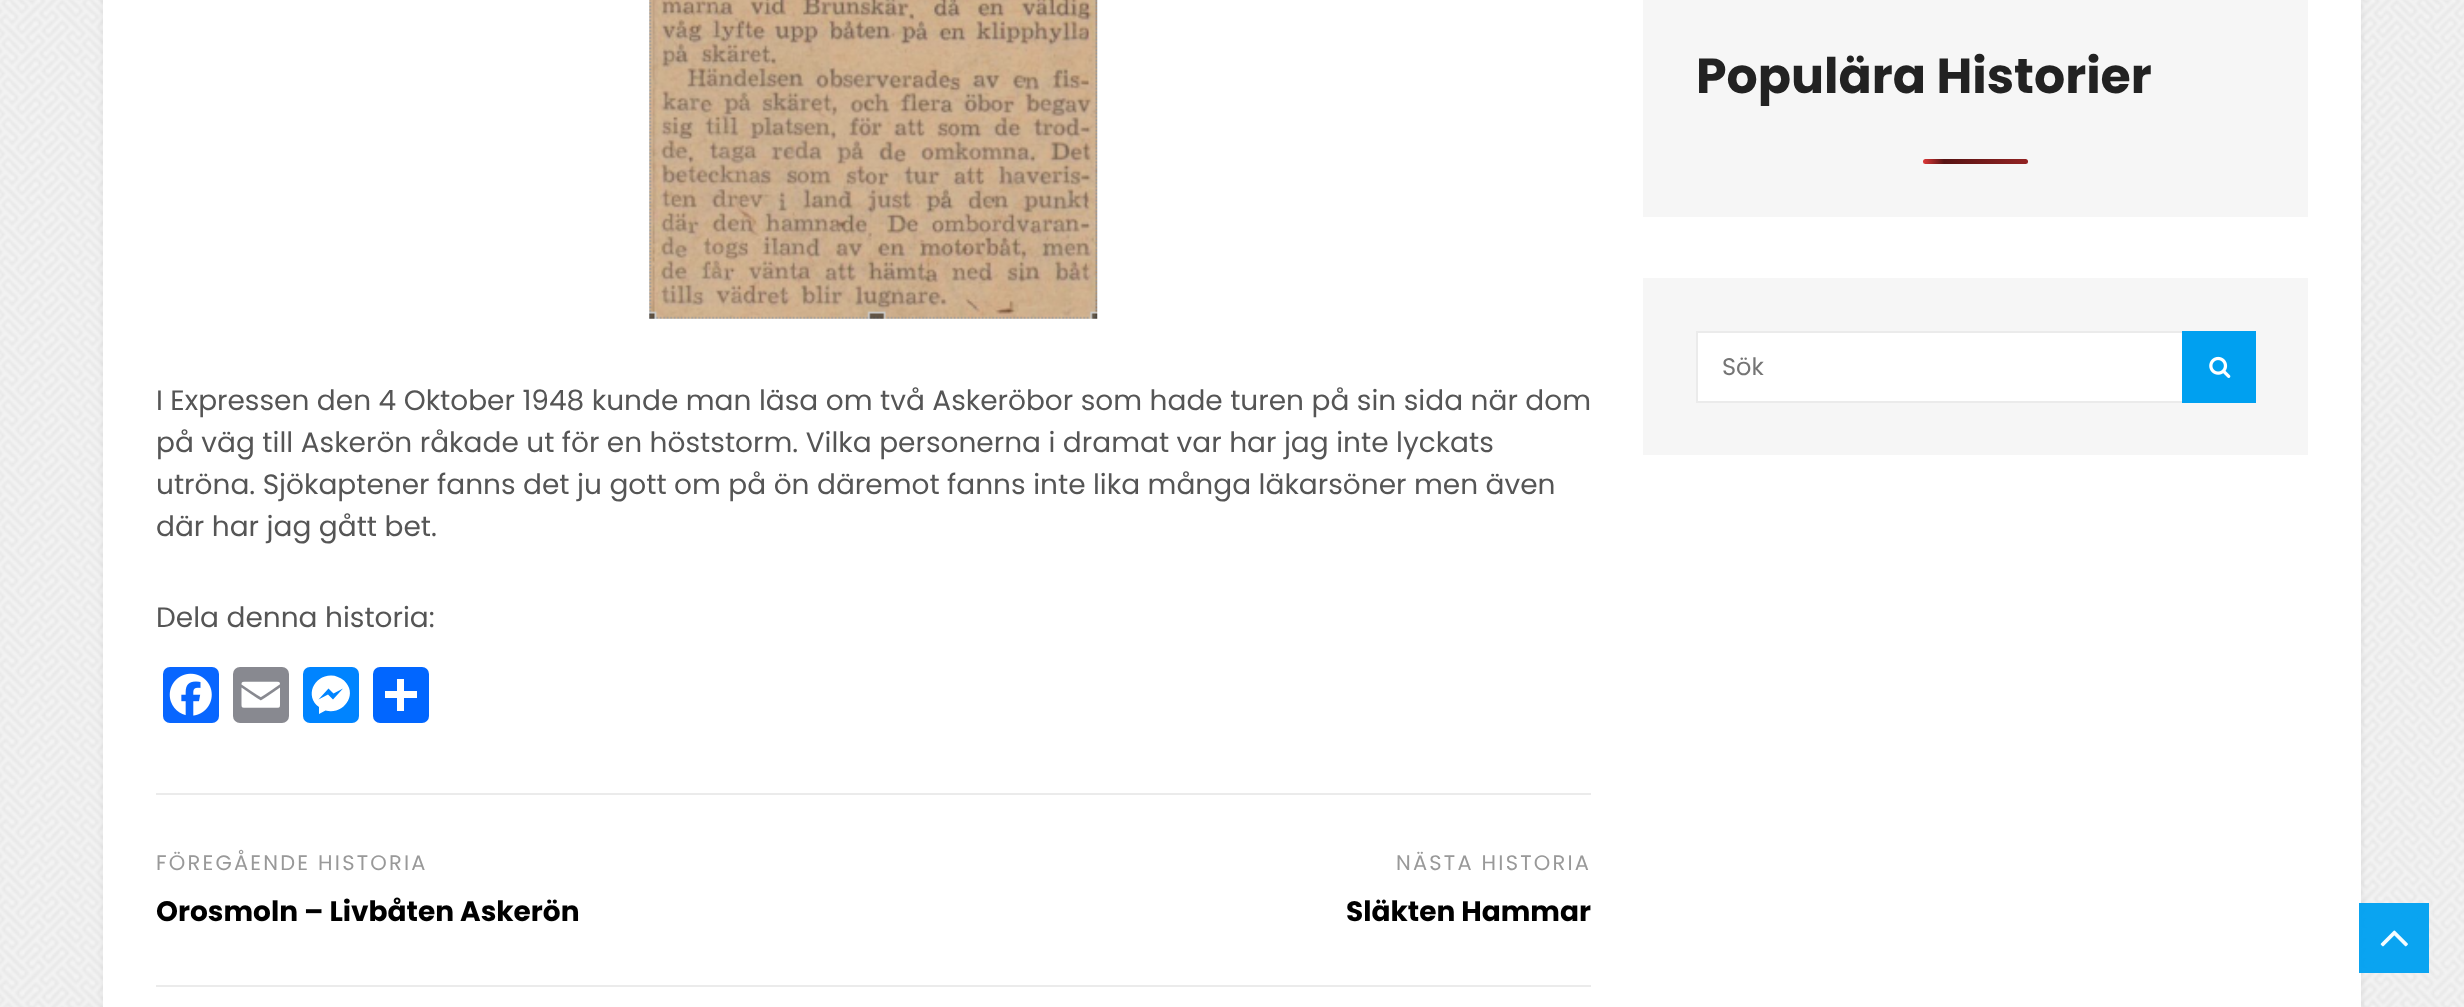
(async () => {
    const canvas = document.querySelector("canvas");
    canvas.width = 2464;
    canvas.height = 1007;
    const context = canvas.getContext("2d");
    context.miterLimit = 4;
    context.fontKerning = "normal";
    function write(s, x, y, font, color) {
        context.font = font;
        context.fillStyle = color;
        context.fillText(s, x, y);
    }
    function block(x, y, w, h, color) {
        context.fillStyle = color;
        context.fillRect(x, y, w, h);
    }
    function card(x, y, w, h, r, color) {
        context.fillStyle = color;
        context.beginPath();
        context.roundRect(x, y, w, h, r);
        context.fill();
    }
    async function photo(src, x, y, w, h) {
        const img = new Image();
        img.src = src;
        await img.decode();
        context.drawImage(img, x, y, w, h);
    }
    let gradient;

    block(0, 0, 2464, 1007, "rgb(255, 255, 255)");
    await photo("media/1.png", 0, 0, 2464, 1007);
    context.fillStyle = "rgba(0, 0, 0, 0.05)";
    context.filter = "blur(2.5px)";
    context.beginPath();
    context.rect(102, -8, 2261, 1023);
    context.fill();
    context.filter = "none";
    block(103, 0, 2258, 1007, "rgb(255, 255, 255)");
    block(1643, 0, 665, 217, "rgb(246, 246, 246)");
    write("Populära Historier", 1696, 93, "bold 49px Poppins", "rgb(34, 34, 34)");
    gradient = context.createLinearGradient(1923, 162, 2133, 162);
    gradient.addColorStop(0, "rgb(221, 55, 55)");
    gradient.addColorStop(0.1, "rgb(87, 19, 19)");
    gradient.addColorStop(1, "rgb(221, 55, 55)");
    context.fillStyle = gradient;
    context.beginPath();
    context.roundRect(1923, 159, 105, 5, 2.5);
    context.fill();
    block(1643, 278, 665, 177, "rgb(246, 246, 246)");
    block(1698, 333, 484, 68, "rgb(255, 255, 255)");
    context.strokeStyle = "rgb(235, 235, 235)";
    context.lineWidth = 2;
    context.strokeRect(1697, 332, 558, 70);
    write("Sök", 1722, 375, "24px Poppins", "rgb(117, 117, 117)");
    block(2182, 331, 74, 72, "rgb(0, 160, 240)");
    await photo("media/2.png", 2209, 356, 22, 22);
    await photo("media/3.png", 649, 0, 449, 319);
    write("I Expressen den 4 Oktober 1948 kunde man läsa om två Askeröbor som hade turen på sin sida när dom", 156, 410, "28px Poppins", "rgb(85, 85, 85)");
    write("på väg till Askerön råkade ut för en höststorm. Vilka personerna i dramat var har jag inte lyckats", 156, 452, "28px Poppins", "rgb(85, 85, 85)");
    write("utröna. Sjökaptener fanns det ju gott om på ön däremot fanns inte lika många läkarsöner men även", 156, 494, "28px Poppins", "rgb(85, 85, 85)");
    write("där har jag gått bet.", 156, 536, "28px Poppins", "rgb(85, 85, 85)");
    write("Dela denna historia:", 156, 627, "28px Poppins", "rgb(85, 85, 85)");
    card(163, 667, 56, 56, 7, "rgb(8, 102, 255)");
    await photo("media/4.png", 169, 673, 43, 43);
    card(233, 667, 56, 56, 7, "rgb(136, 137, 144)");
    await photo("media/5.png", 241, 681, 39, 27);
    card(303, 667, 56, 56, 7, "rgb(0, 132, 255)");
    context.fillStyle = "rgb(255, 255, 255)";
    context.beginPath();
    context.moveTo(331, 675.5);
    context.bezierCurveTo(313.5, 675.5, 304.5, 696.5, 319, 707);
    context.lineTo(319, 714);
    context.lineTo(325.5, 710.5);
    context.bezierCurveTo(343, 715.5, 359, 694.5, 344, 680.5);
    context.bezierCurveTo(340.5, 677.5, 335.5, 675.5, 331, 675.5);
    context.moveTo(333, 699.5);
    context.lineTo(328, 694.5);
    context.lineTo(318.5, 699.5);
    context.lineTo(328.5, 688.5);
    context.lineTo(333.5, 693.5);
    context.lineTo(343, 688.5);
    context.closePath();
    context.fill();
    card(373, 667, 56, 56, 7, "rgb(1, 102, 255)");
    block(397, 679, 7, 32, "rgb(255, 255, 255)");
    block(385, 691, 32, 7, "rgb(255, 255, 255)");
    block(156, 793, 1435, 2, "rgb(235, 235, 235)");
    block(156, 985, 1435, 2, "rgb(235, 235, 235)");
    context.letterSpacing = "2.2px";
    write("FÖREGÅENDE HISTORIA", 156, 870, "21px Poppins", "rgb(153, 153, 153)");
    context.letterSpacing = "0px";
    write("Orosmoln – Livbåten Askerön", 156, 921, "bold 28px Poppins", "rgb(0, 0, 0)");
    context.letterSpacing = "2.2px";
    write("NÄSTA HISTORIA", 1396, 870, "21px Poppins", "rgb(153, 153, 153)");
    context.letterSpacing = "0px";
    write("Släkten Hammar", 1346, 921, "bold 28px Poppins", "rgb(0, 0, 0)");
    block(2359, 903, 70, 70, "rgba(0, 160, 240, 0.96)");
    await photo("media/6.png", 2380, 930, 28, 17);
})();
